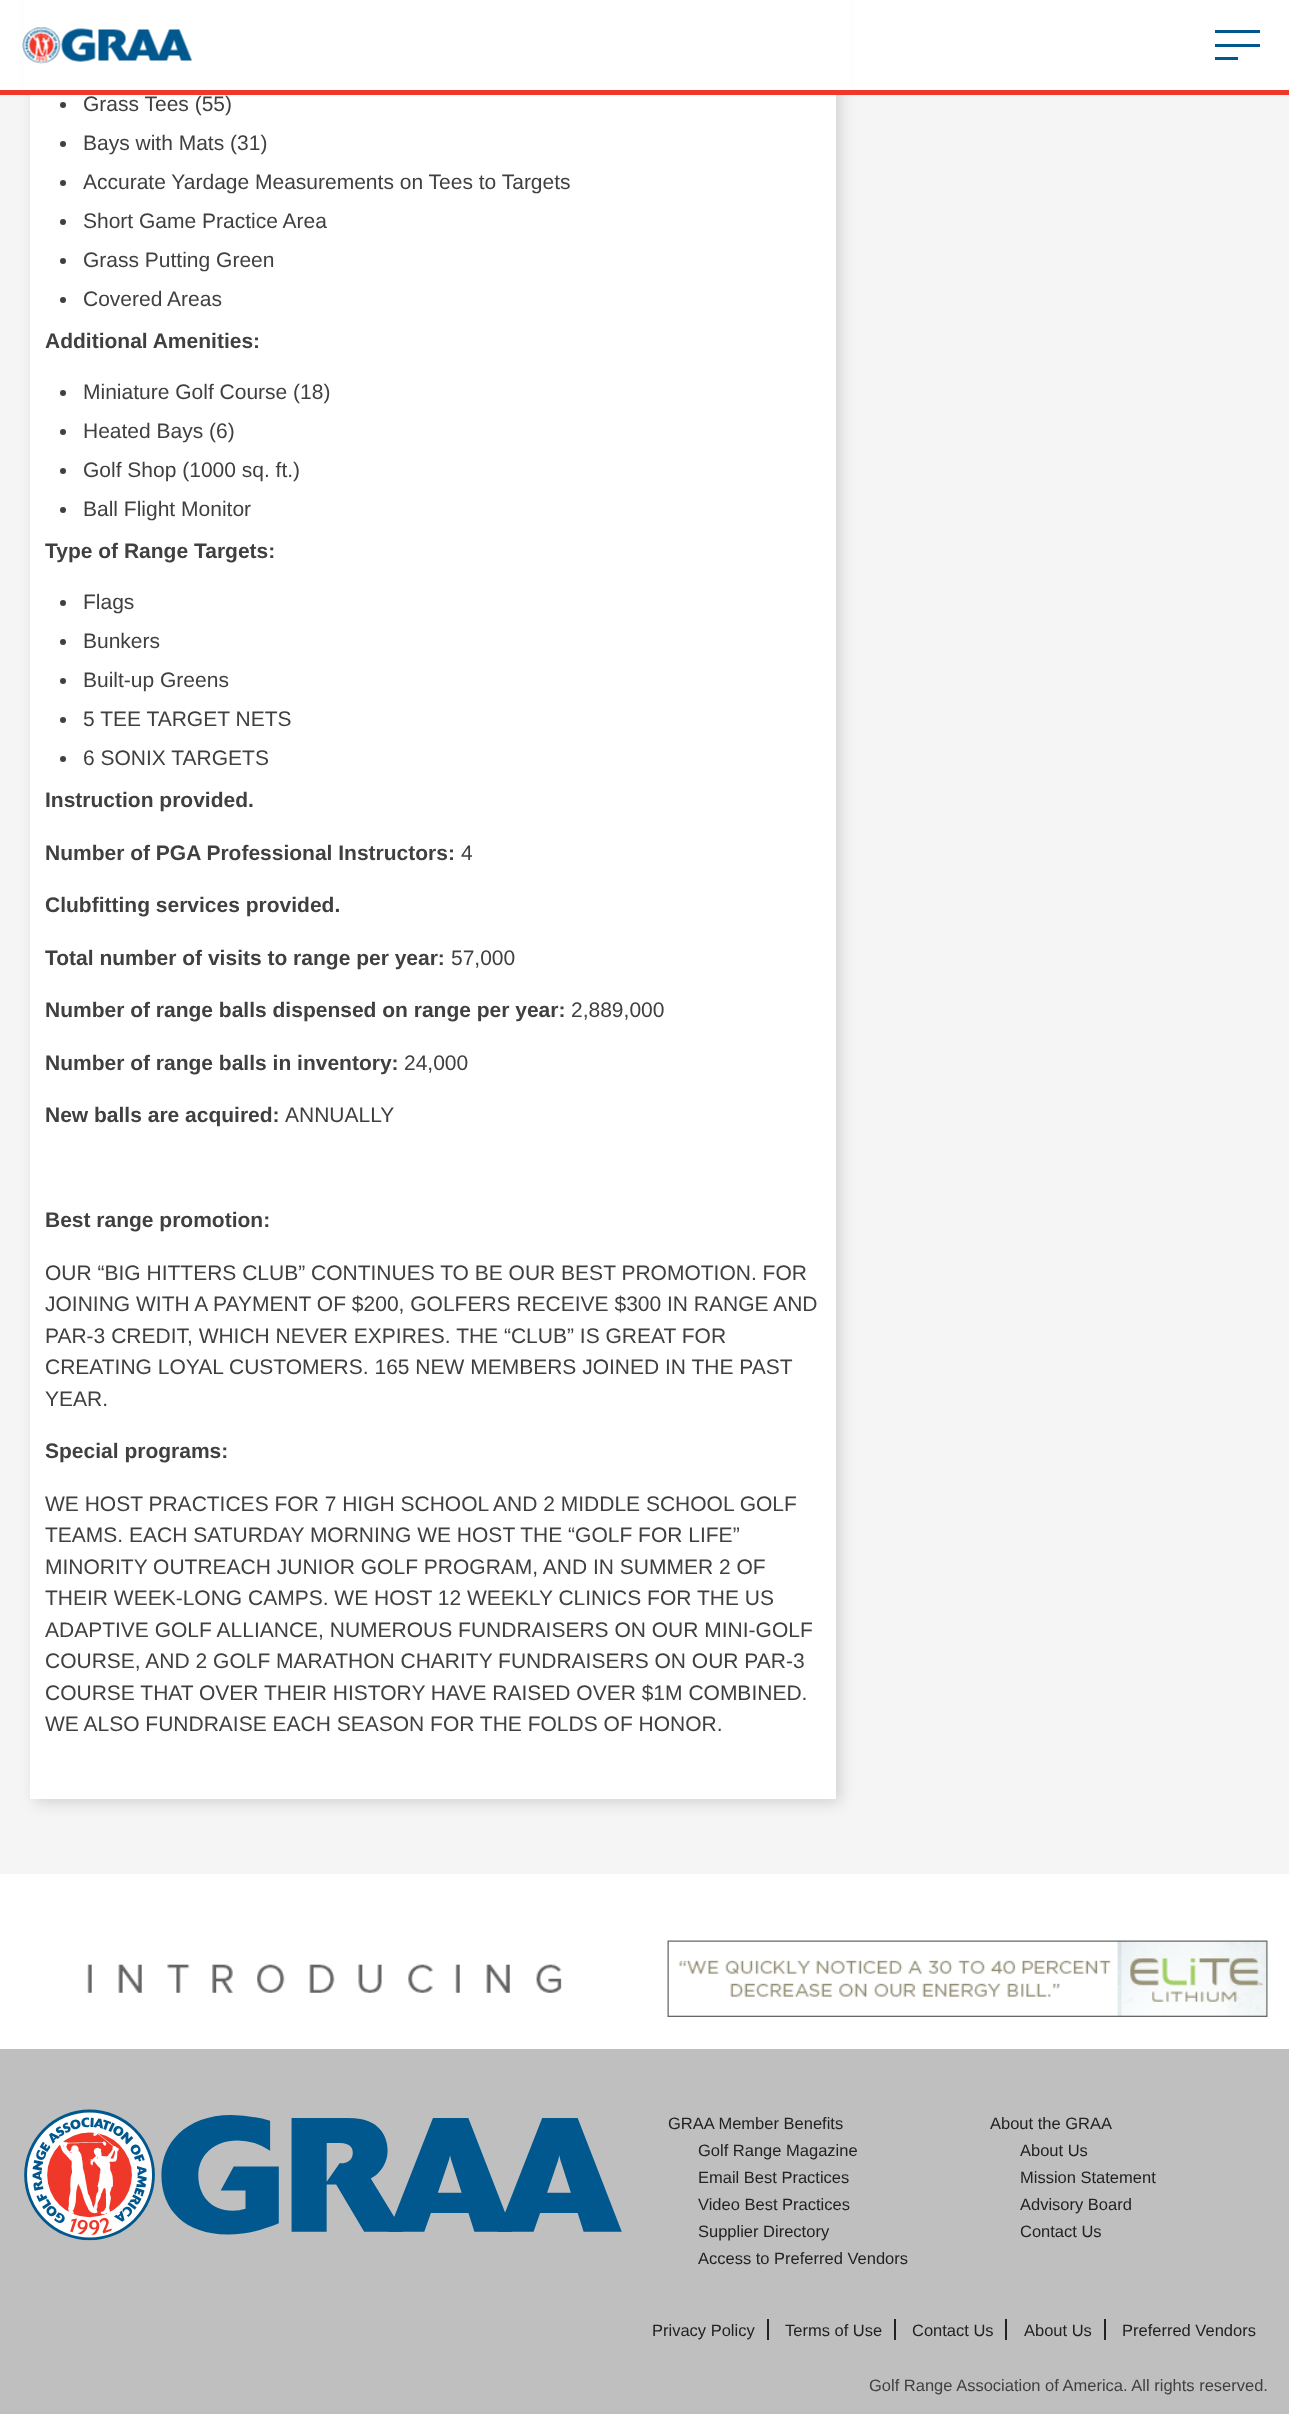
(async () => {
    const canvas = document.querySelector("canvas");
    canvas.width = 1289;
    canvas.height = 2414;
    const context = canvas.getContext("2d");
    context.miterLimit = 4;
    context.fontKerning = "normal";
    function write(s, x, y, font, color) {
        context.font = font;
        context.fillStyle = color;
        context.fillText(s, x, y);
    }
    function block(x, y, w, h, color) {
        context.fillStyle = color;
        context.fillRect(x, y, w, h);
    }
    async function photo(src, x, y, w, h) {
        const img = new Image();
        img.src = src;
        await img.decode();
        context.drawImage(img, x, y, w, h);
    }

    block(0, 0, 1289, 2414, "rgb(255, 255, 255)");
    block(0, 95, 1289, 1779, "rgb(245, 245, 245)");
    context.fillStyle = "rgba(0, 0, 0, 0.15)";
    context.filter = "blur(7.5px)";
    context.beginPath();
    context.rect(35, -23, 805, 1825);
    context.fill();
    context.filter = "none";
    block(24, 0, 827, 90, "rgb(255, 255, 255)");
    block(0, 90, 1289, 5, "rgb(239, 56, 41)");
    await photo("media/1.png", 22, 27, 170, 37);
    block(1215, 44, 45, 3, "rgb(0, 88, 143)");
    block(1215, 30, 45, 3, "rgb(0, 88, 143)");
    block(1215, 57, 23, 3, "rgb(0, 88, 143)");
    block(30, 95, 806, 1704, "rgb(255, 255, 255)");
    context.fillStyle = "rgb(64, 64, 64)";
    context.beginPath();
    context.arc(63, 105, 3, 0, Math.PI * 2);
    context.fill();
    write("Grass Tees (55)", 83, 111, "21px Liberation Sans", "rgb(64, 64, 64)");
    context.beginPath();
    context.arc(63, 144, 3, 0, Math.PI * 2);
    context.fill();
    write("Bays with Mats (31)", 83, 150, "21px Liberation Sans", "rgb(64, 64, 64)");
    context.beginPath();
    context.arc(63, 183, 3, 0, Math.PI * 2);
    context.fill();
    write("Accurate Yardage Measurements on Tees to Targets", 83, 189, "21px Liberation Sans", "rgb(64, 64, 64)");
    context.beginPath();
    context.arc(63, 222, 3, 0, Math.PI * 2);
    context.fill();
    write("Short Game Practice Area", 83, 228, "21px Liberation Sans", "rgb(64, 64, 64)");
    context.beginPath();
    context.arc(63, 261, 3, 0, Math.PI * 2);
    context.fill();
    write("Grass Putting Green", 83, 267, "21px Liberation Sans", "rgb(64, 64, 64)");
    context.beginPath();
    context.arc(63, 300, 3, 0, Math.PI * 2);
    context.fill();
    write("Covered Areas", 83, 306, "21px Liberation Sans", "rgb(64, 64, 64)");
    write("Additional Amenities:", 45, 348, "bold 21px Liberation Sans", "rgb(64, 64, 64)");
    context.beginPath();
    context.arc(63, 393, 3, 0, Math.PI * 2);
    context.fill();
    write("Miniature Golf Course (18)", 83, 399, "21px Liberation Sans", "rgb(64, 64, 64)");
    context.beginPath();
    context.arc(63, 432, 3, 0, Math.PI * 2);
    context.fill();
    write("Heated Bays (6)", 83, 438, "21px Liberation Sans", "rgb(64, 64, 64)");
    context.beginPath();
    context.arc(63, 471, 3, 0, Math.PI * 2);
    context.fill();
    write("Golf Shop (1000 sq. ft.)", 83, 477, "21px Liberation Sans", "rgb(64, 64, 64)");
    context.beginPath();
    context.arc(63, 510, 3, 0, Math.PI * 2);
    context.fill();
    write("Ball Flight Monitor", 83, 516, "21px Liberation Sans", "rgb(64, 64, 64)");
    write("Type of Range Targets:", 45, 558, "bold 21px Liberation Sans", "rgb(64, 64, 64)");
    context.beginPath();
    context.arc(63, 603, 3, 0, Math.PI * 2);
    context.fill();
    write("Flags", 83, 609, "21px Liberation Sans", "rgb(64, 64, 64)");
    context.beginPath();
    context.arc(63, 642, 3, 0, Math.PI * 2);
    context.fill();
    write("Bunkers", 83, 648, "21px Liberation Sans", "rgb(64, 64, 64)");
    context.beginPath();
    context.arc(63, 681, 3, 0, Math.PI * 2);
    context.fill();
    write("Built-up Greens", 83, 687, "21px Liberation Sans", "rgb(64, 64, 64)");
    context.beginPath();
    context.arc(63, 720, 3, 0, Math.PI * 2);
    context.fill();
    write("5 TEE TARGET NETS", 83, 726, "21px Liberation Sans", "rgb(64, 64, 64)");
    context.beginPath();
    context.arc(63, 759, 3, 0, Math.PI * 2);
    context.fill();
    write("6 SONIX TARGETS", 83, 765, "21px Liberation Sans", "rgb(64, 64, 64)");
    write("Instruction provided.", 45, 807, "bold 21px Liberation Sans", "rgb(64, 64, 64)");
    write("Number of PGA Professional Instructors:", 45, 860, "bold 21px Liberation Sans", "rgb(64, 64, 64)");
    write("4", 461, 860, "21px Liberation Sans", "rgb(64, 64, 64)");
    write("Clubfitting services provided.", 45, 912, "bold 21px Liberation Sans", "rgb(64, 64, 64)");
    write("Total number of visits to range per year:", 45, 965, "bold 21px Liberation Sans", "rgb(64, 64, 64)");
    write("57,000", 451, 965, "21px Liberation Sans", "rgb(64, 64, 64)");
    write("Number of range balls dispensed on range per year:", 45, 1017, "bold 21px Liberation Sans", "rgb(64, 64, 64)");
    write("2,889,000", 571, 1017, "21px Liberation Sans", "rgb(64, 64, 64)");
    write("Number of range balls in inventory:", 45, 1070, "bold 21px Liberation Sans", "rgb(64, 64, 64)");
    write("24,000", 404, 1070, "21px Liberation Sans", "rgb(64, 64, 64)");
    write("New balls are acquired:", 45, 1122, "bold 21px Liberation Sans", "rgb(64, 64, 64)");
    write("ANNUALLY", 285, 1122, "21px Liberation Sans", "rgb(64, 64, 64)");
    write("Best range promotion:", 45, 1227, "bold 21px Liberation Sans", "rgb(64, 64, 64)");
    write("OUR “BIG HITTERS CLUB” CONTINUES TO BE OUR BEST PROMOTION. FOR", 45, 1280, "21px Liberation Sans", "rgb(64, 64, 64)");
    write("JOINING WITH A PAYMENT OF $200, GOLFERS RECEIVE $300 IN RANGE AND", 45, 1311, "21px Liberation Sans", "rgb(64, 64, 64)");
    write("PAR-3 CREDIT, WHICH NEVER EXPIRES. THE “CLUB” IS GREAT FOR", 45, 1343, "21px Liberation Sans", "rgb(64, 64, 64)");
    write("CREATING LOYAL CUSTOMERS. 165 NEW MEMBERS JOINED IN THE PAST", 45, 1374, "21px Liberation Sans", "rgb(64, 64, 64)");
    write("YEAR.", 45, 1406, "21px Liberation Sans", "rgb(64, 64, 64)");
    write("Special programs:", 45, 1458, "bold 21px Liberation Sans", "rgb(64, 64, 64)");
    write("WE HOST PRACTICES FOR 7 HIGH SCHOOL AND 2 MIDDLE SCHOOL GOLF", 45, 1511, "21px Liberation Sans", "rgb(64, 64, 64)");
    write("TEAMS. EACH SATURDAY MORNING WE HOST THE “GOLF FOR LIFE”", 45, 1542, "21px Liberation Sans", "rgb(64, 64, 64)");
    write("MINORITY OUTREACH JUNIOR GOLF PROGRAM, AND IN SUMMER 2 OF", 45, 1574, "21px Liberation Sans", "rgb(64, 64, 64)");
    write("THEIR WEEK-LONG CAMPS. WE HOST 12 WEEKLY CLINICS FOR THE US", 45, 1605, "21px Liberation Sans", "rgb(64, 64, 64)");
    write("ADAPTIVE GOLF ALLIANCE, NUMEROUS FUNDRAISERS ON OUR MINI-GOLF", 45, 1637, "21px Liberation Sans", "rgb(64, 64, 64)");
    write("COURSE, AND 2 GOLF MARATHON CHARITY FUNDRAISERS ON OUR PAR-3", 45, 1668, "21px Liberation Sans", "rgb(64, 64, 64)");
    write("COURSE THAT OVER THEIR HISTORY HAVE RAISED OVER $1M COMBINED.", 45, 1700, "21px Liberation Sans", "rgb(64, 64, 64)");
    write("WE ALSO FUNDRAISE EACH SEASON FOR THE FOLDS OF HONOR.", 45, 1731, "21px Liberation Sans", "rgb(64, 64, 64)");
    await photo("media/2.png", 87, 1964, 475, 29);
    await photo("media/3.png", 667, 1940, 601, 77);
    block(0, 2049, 1289, 365, "rgb(191, 191, 191)");
    await photo("media/4.png", 24, 2109, 598, 132);
    write("GRAA Member Benefits", 668, 2129, "16.5px Liberation Sans", "rgb(34, 34, 34)");
    write("Golf Range Magazine", 698, 2156, "16.5px Liberation Sans", "rgb(34, 34, 34)");
    write("Email Best Practices", 698, 2183, "16.5px Liberation Sans", "rgb(34, 34, 34)");
    write("Video Best Practices", 698, 2210, "16.5px Liberation Sans", "rgb(34, 34, 34)");
    write("Supplier Directory", 698, 2237, "16.5px Liberation Sans", "rgb(34, 34, 34)");
    write("Access to Preferred Vendors", 698, 2264, "16.5px Liberation Sans", "rgb(34, 34, 34)");
    write("About the GRAA", 990, 2129, "16.5px Liberation Sans", "rgb(34, 34, 34)");
    write("About Us", 1020, 2156, "16.5px Liberation Sans", "rgb(34, 34, 34)");
    write("Mission Statement", 1020, 2183, "16.5px Liberation Sans", "rgb(34, 34, 34)");
    write("Advisory Board", 1020, 2210, "16.5px Liberation Sans", "rgb(34, 34, 34)");
    write("Contact Us", 1020, 2237, "16.5px Liberation Sans", "rgb(34, 34, 34)");
    write("Privacy Policy", 652, 2336, "16.5px Liberation Sans", "rgb(34, 34, 34)");
    block(767, 2319, 2, 21, "rgb(34, 34, 34)");
    write("Terms of Use", 785, 2336, "16.5px Liberation Sans", "rgb(34, 34, 34)");
    block(894, 2319, 2, 21, "rgb(34, 34, 34)");
    write("Contact Us", 912, 2336, "16.5px Liberation Sans", "rgb(34, 34, 34)");
    block(1005, 2319, 2, 21, "rgb(34, 34, 34)");
    write("About Us", 1024, 2336, "16.5px Liberation Sans", "rgb(34, 34, 34)");
    block(1104, 2319, 2, 21, "rgb(34, 34, 34)");
    write("Preferred Vendors", 1122, 2336, "16.5px Liberation Sans", "rgb(34, 34, 34)");
    write("Golf Range Association of America. All rights reserved.", 869, 2391, "16.5px Liberation Sans", "rgb(64, 64, 64)");
})();
